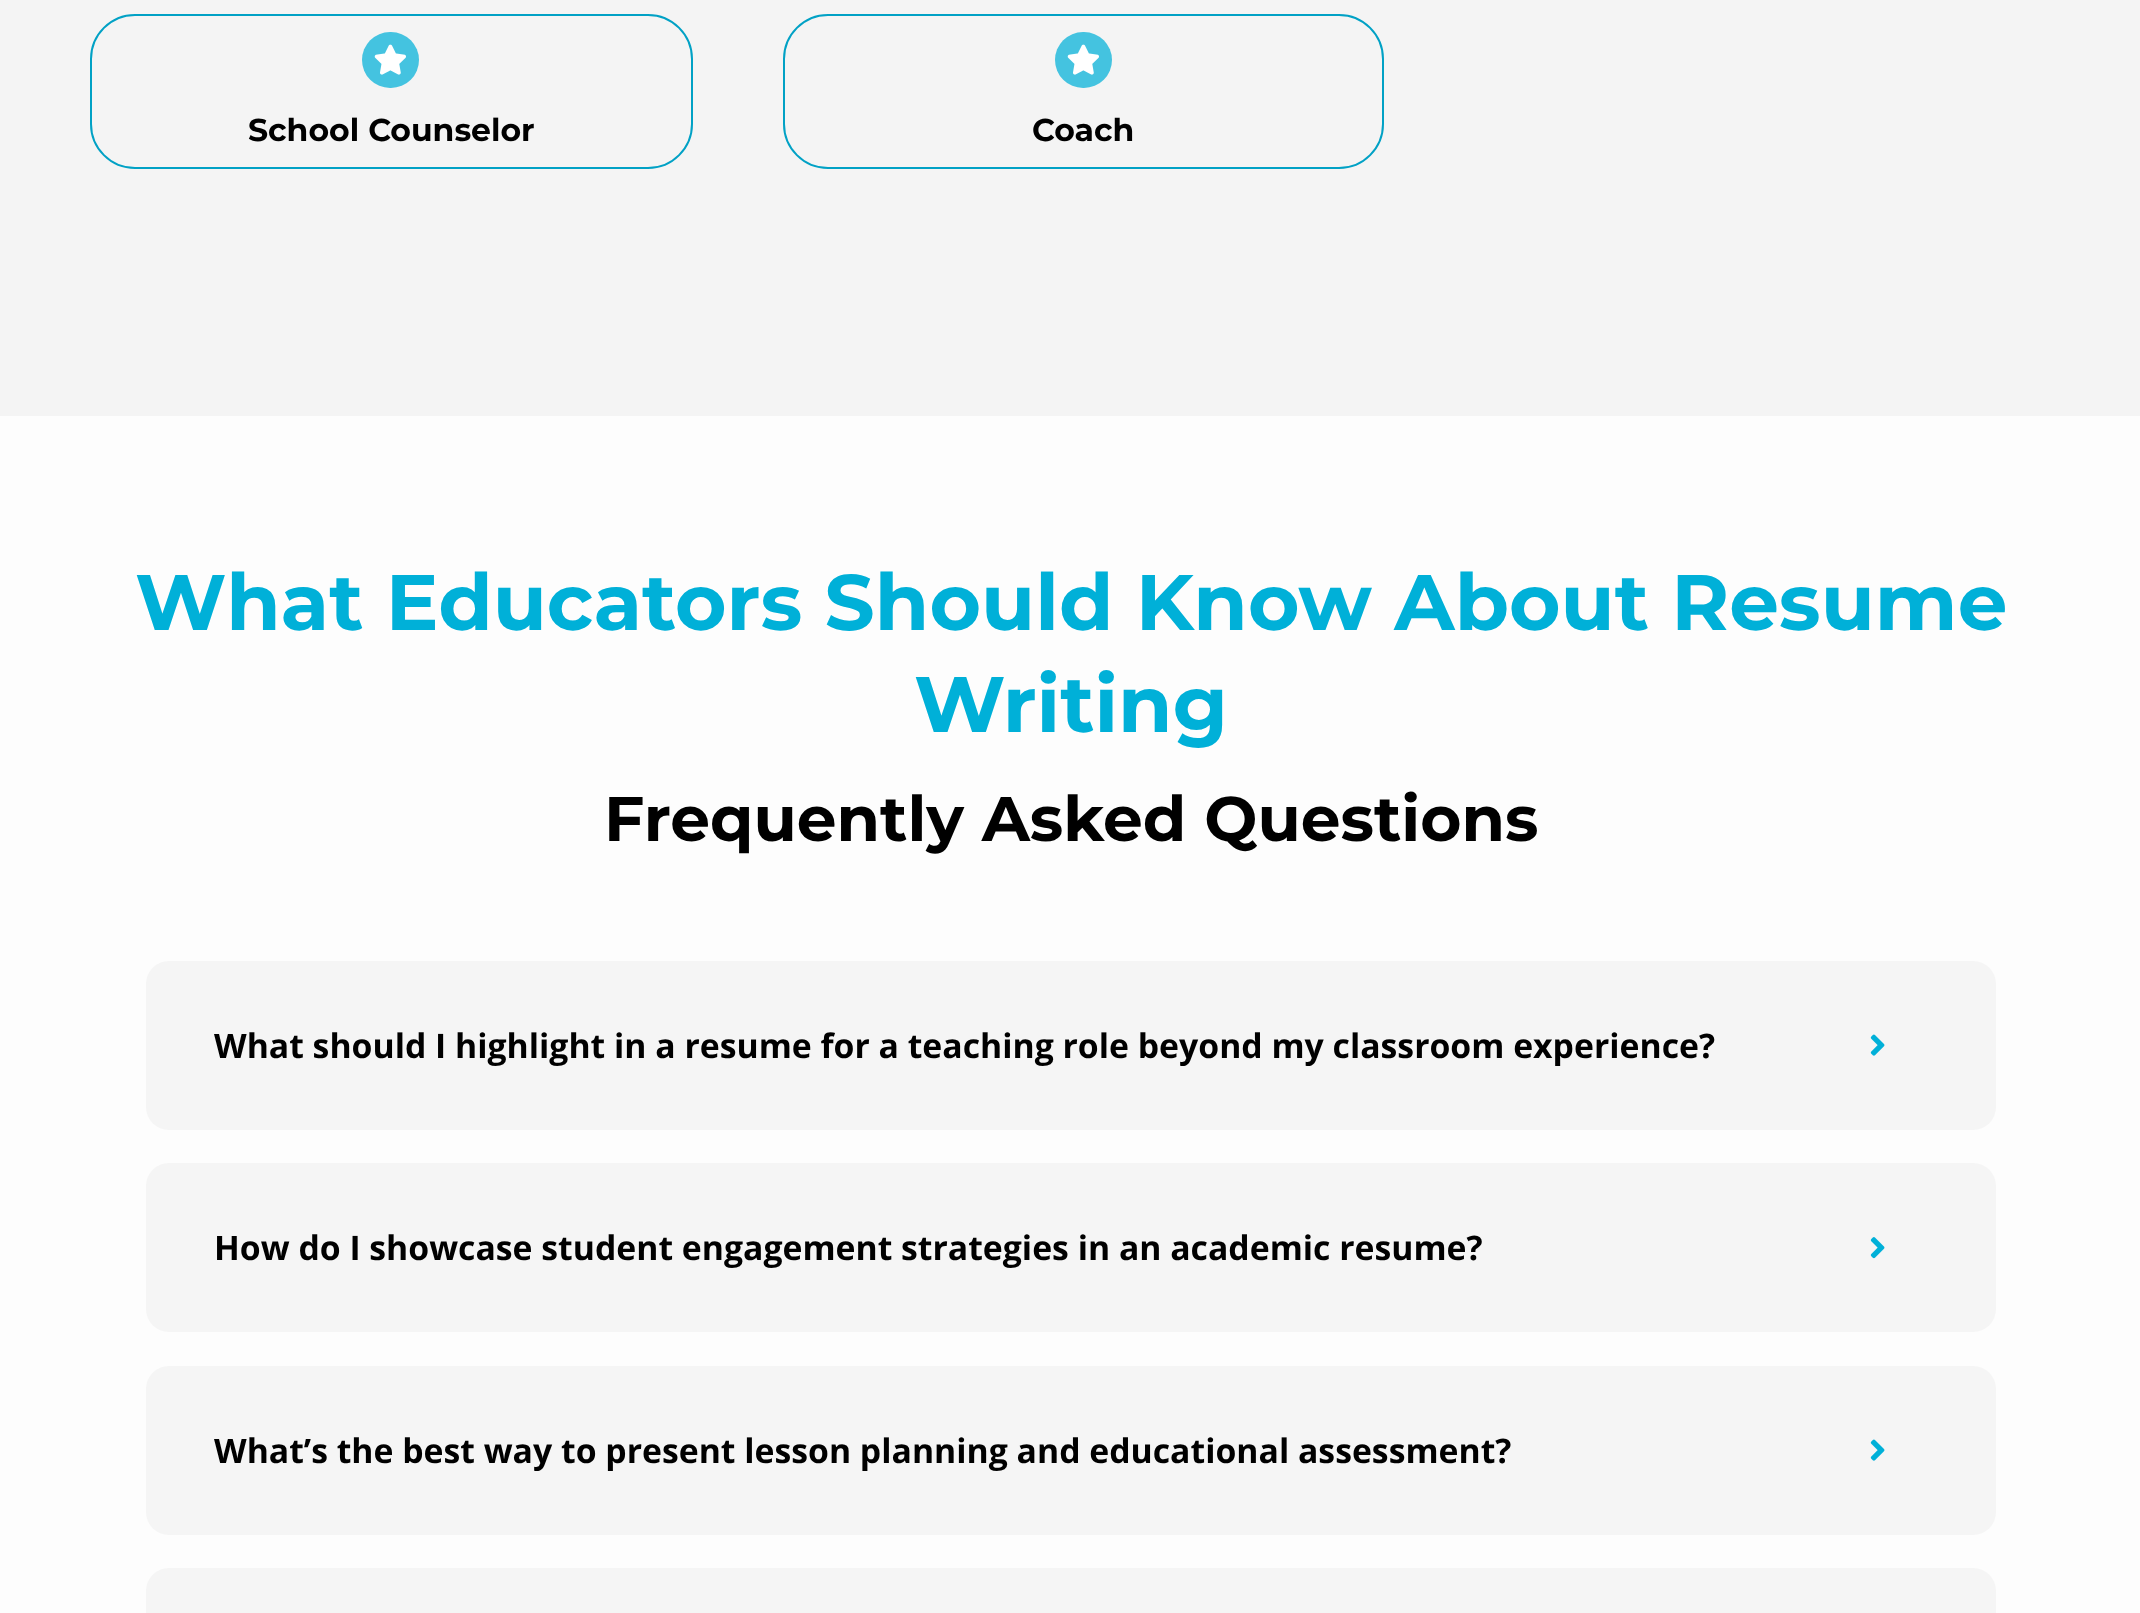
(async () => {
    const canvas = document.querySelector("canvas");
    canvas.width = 2140;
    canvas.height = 1613;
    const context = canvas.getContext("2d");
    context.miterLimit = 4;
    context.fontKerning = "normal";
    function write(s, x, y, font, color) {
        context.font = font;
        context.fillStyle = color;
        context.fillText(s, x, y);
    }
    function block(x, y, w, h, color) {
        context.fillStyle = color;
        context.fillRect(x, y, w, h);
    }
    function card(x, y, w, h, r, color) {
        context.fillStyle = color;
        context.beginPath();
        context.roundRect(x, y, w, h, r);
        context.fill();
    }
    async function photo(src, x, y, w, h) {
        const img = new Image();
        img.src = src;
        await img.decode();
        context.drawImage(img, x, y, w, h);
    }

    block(0, 0, 2140, 1613, "rgb(244, 244, 244)");
    context.beginPath();
    context.roundRect(91, 15, 601, 153, 44);
    context.strokeStyle = "rgb(1, 161, 197)";
    context.lineWidth = 2;
    context.stroke();
    card(362, 32, 57, 56, 28, "rgb(68, 195, 224)");
    await photo("media/1.png", 374, 44, 32, 31);
    write("School Counselor", 248, 141, "bold 31.5px Montserrat", "rgb(0, 0, 0)");
    context.beginPath();
    context.roundRect(784, 15, 599, 153, 44);
    context.stroke();
    card(1055, 32, 57, 56, 28, "rgb(68, 195, 224)");
    await photo("media/1.png", 1067, 44, 32, 31);
    write("Coach", 1032, 141, "bold 31.5px Montserrat", "rgb(0, 0, 0)");
    block(0, 416, 2140, 1197, "rgb(253, 253, 253)");
    write("What Educators Should Know About Resume", 135, 630, "bold 78.75px Montserrat", "rgb(0, 176, 216)");
    write("Writing", 914, 732, "bold 78.75px Montserrat", "rgb(0, 176, 216)");
    write("Frequently Asked Questions", 604, 841, "bold 63px Montserrat", "rgb(0, 0, 0)");
    card(146, 961, 1850, 169, 23, "rgb(245, 245, 245)");
    write("What should I highlight in a resume for a teaching role beyond my classroom experience?", 214, 1058, "bold 33.75px Open Sans", "rgb(0, 0, 0)");
    await photo("media/2.png", 1870, 1034, 15, 22);
    card(146, 1163, 1850, 169, 23, "rgb(245, 245, 245)");
    write("How do I showcase student engagement strategies in an academic resume?", 214, 1260, "bold 33.75px Open Sans", "rgb(0, 0, 0)");
    await photo("media/3.png", 1870, 1237, 15, 22);
    card(146, 1366, 1850, 169, 23, "rgb(245, 245, 245)");
    write("What’s the best way to present lesson planning and educational assessment?", 214, 1463, "bold 33.75px Open Sans", "rgb(0, 0, 0)");
    await photo("media/2.png", 1870, 1439, 15, 22);
    card(146, 1568, 1850, 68, 23, "rgb(245, 245, 245)");
})();
